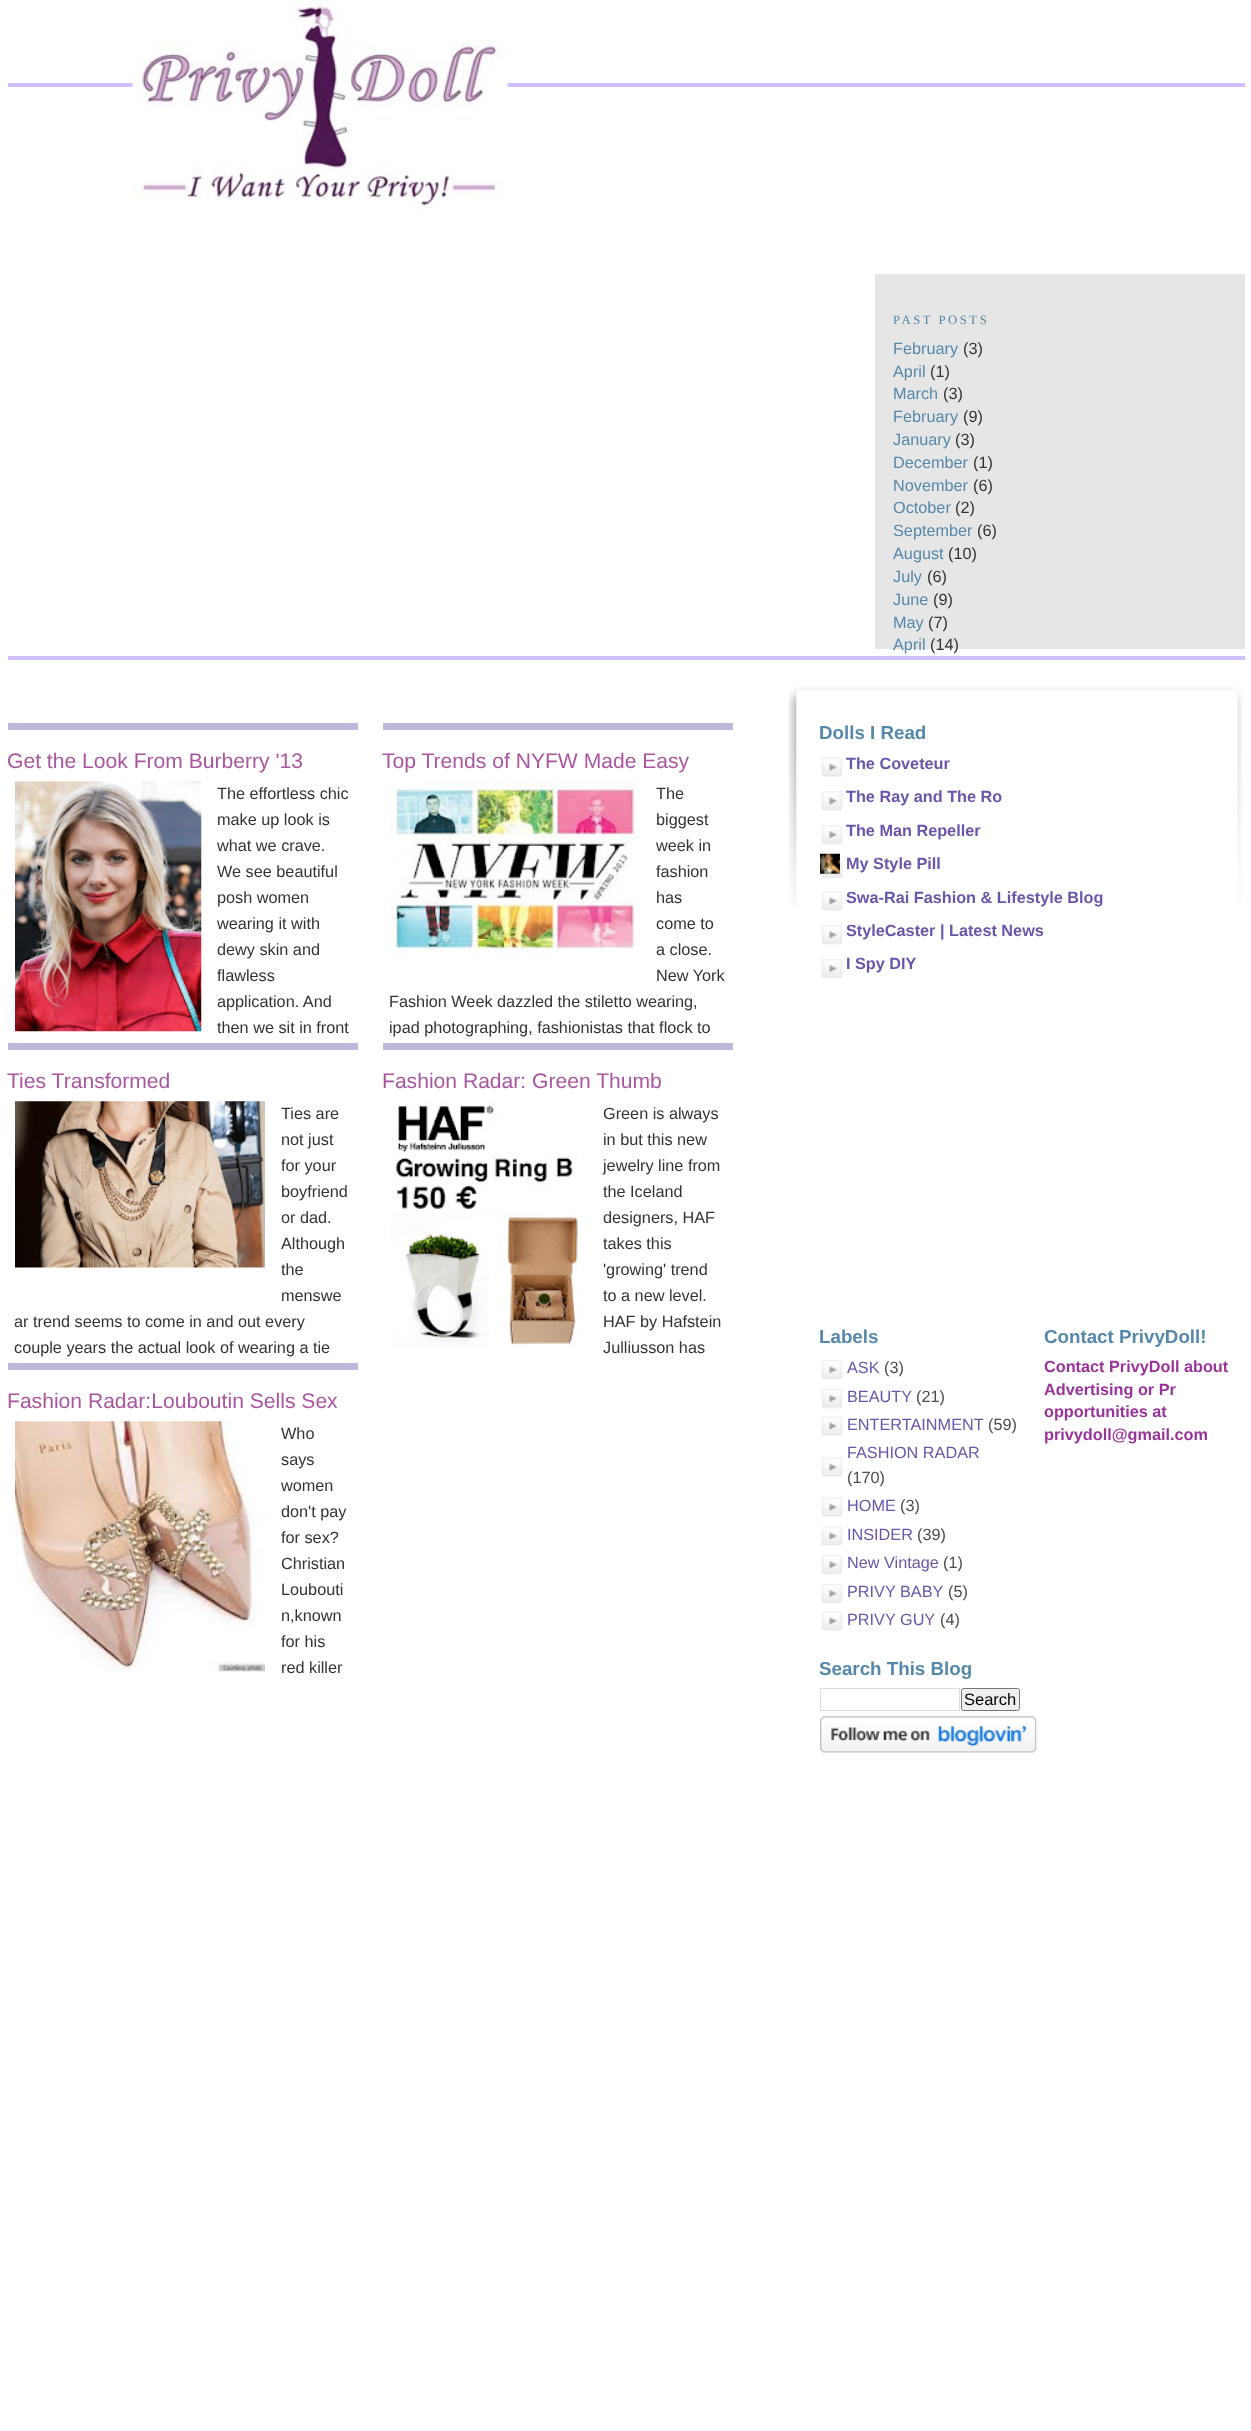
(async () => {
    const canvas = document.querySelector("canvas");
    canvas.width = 1251;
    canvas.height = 2431;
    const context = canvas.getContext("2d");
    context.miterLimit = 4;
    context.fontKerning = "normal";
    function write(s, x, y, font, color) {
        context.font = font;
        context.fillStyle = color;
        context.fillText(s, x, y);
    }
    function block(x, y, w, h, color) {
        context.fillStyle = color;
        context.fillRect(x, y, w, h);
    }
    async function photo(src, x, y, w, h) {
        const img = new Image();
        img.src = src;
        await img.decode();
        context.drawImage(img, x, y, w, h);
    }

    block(0, 0, 1251, 2431, "rgb(255, 255, 255)");
    block(8, 83, 1237, 4, "rgb(208, 191, 255)");
    await photo("media/1.png", 132, 0, 376, 210);
    block(8, 656, 1237, 4, "rgb(208, 191, 255)");
    block(875, 274, 370, 375, "rgb(230, 230, 230)");
    context.letterSpacing = "2.5px";
    write("PAST POSTS", 893, 324, "12.75px Liberation Serif", "rgb(85, 136, 170)");
    context.letterSpacing = "0px";
    write("February", 893, 354, "16.25px Liberation Sans", "rgb(85, 136, 170)");
    write("(3)", 963, 354, "16.25px Liberation Sans", "rgb(51, 51, 51)");
    write("April", 893, 377, "16.25px Liberation Sans", "rgb(85, 136, 170)");
    write("(1)", 930, 377, "16.25px Liberation Sans", "rgb(51, 51, 51)");
    write("March", 893, 399, "16.25px Liberation Sans", "rgb(85, 136, 170)");
    write("(3)", 943, 399, "16.25px Liberation Sans", "rgb(51, 51, 51)");
    write("February", 893, 422, "16.25px Liberation Sans", "rgb(85, 136, 170)");
    write("(9)", 963, 422, "16.25px Liberation Sans", "rgb(51, 51, 51)");
    write("January", 893, 445, "16.25px Liberation Sans", "rgb(85, 136, 170)");
    write("(3)", 955, 445, "16.25px Liberation Sans", "rgb(51, 51, 51)");
    write("December", 893, 468, "16.25px Liberation Sans", "rgb(85, 136, 170)");
    write("(1)", 973, 468, "16.25px Liberation Sans", "rgb(51, 51, 51)");
    write("November", 893, 491, "16.25px Liberation Sans", "rgb(85, 136, 170)");
    write("(6)", 973, 491, "16.25px Liberation Sans", "rgb(51, 51, 51)");
    write("October", 893, 513, "16.25px Liberation Sans", "rgb(85, 136, 170)");
    write("(2)", 955, 513, "16.25px Liberation Sans", "rgb(51, 51, 51)");
    write("September", 893, 536, "16.25px Liberation Sans", "rgb(85, 136, 170)");
    write("(6)", 977, 536, "16.25px Liberation Sans", "rgb(51, 51, 51)");
    write("August", 893, 559, "16.25px Liberation Sans", "rgb(85, 136, 170)");
    write("(10)", 948, 559, "16.25px Liberation Sans", "rgb(51, 51, 51)");
    write("July", 893, 582, "16.25px Liberation Sans", "rgb(85, 136, 170)");
    write("(6)", 927, 582, "16.25px Liberation Sans", "rgb(51, 51, 51)");
    write("June", 893, 605, "16.25px Liberation Sans", "rgb(85, 136, 170)");
    write("(9)", 933, 605, "16.25px Liberation Sans", "rgb(51, 51, 51)");
    write("May", 893, 628, "16.25px Liberation Sans", "rgb(85, 136, 170)");
    write("(7)", 928, 628, "16.25px Liberation Sans", "rgb(51, 51, 51)");
    write("April", 893, 650, "16.25px Liberation Sans", "rgb(85, 136, 170)");
    write("(14)", 930, 650, "16.25px Liberation Sans", "rgb(51, 51, 51)");
    block(8, 723, 350, 7, "rgb(189, 185, 221)");
    write("Get the Look From Burberry '13", 7, 768, "21.1px Liberation Sans", "rgb(170, 85, 160)");
    await photo("media/2.png", 15, 781, 187, 251);
    write("The effortless chic", 217, 799, "16.25px Liberation Sans", "rgb(51, 51, 51)");
    write("make up look is", 217, 825, "16.25px Liberation Sans", "rgb(51, 51, 51)");
    write("what we crave.", 217, 851, "16.25px Liberation Sans", "rgb(51, 51, 51)");
    write("We see beautiful", 217, 877, "16.25px Liberation Sans", "rgb(51, 51, 51)");
    write("posh women", 217, 903, "16.25px Liberation Sans", "rgb(51, 51, 51)");
    write("wearing it with", 217, 929, "16.25px Liberation Sans", "rgb(51, 51, 51)");
    write("dewy skin and", 217, 955, "16.25px Liberation Sans", "rgb(51, 51, 51)");
    write("flawless", 217, 981, "16.25px Liberation Sans", "rgb(51, 51, 51)");
    write("application. And", 217, 1007, "16.25px Liberation Sans", "rgb(51, 51, 51)");
    write("then we sit in front", 217, 1033, "16.25px Liberation Sans", "rgb(51, 51, 51)");
    block(383, 723, 350, 7, "rgb(189, 185, 221)");
    write("Top Trends of NYFW Made Easy", 382, 768, "21.1px Liberation Sans", "rgb(170, 85, 160)");
    await photo("media/3.png", 390, 781, 250, 173);
    write("The", 656, 799, "16.25px Liberation Sans", "rgb(51, 51, 51)");
    write("biggest", 656, 825, "16.25px Liberation Sans", "rgb(51, 51, 51)");
    write("week in", 656, 851, "16.25px Liberation Sans", "rgb(51, 51, 51)");
    write("fashion", 656, 877, "16.25px Liberation Sans", "rgb(51, 51, 51)");
    write("has", 656, 903, "16.25px Liberation Sans", "rgb(51, 51, 51)");
    write("come to", 656, 929, "16.25px Liberation Sans", "rgb(51, 51, 51)");
    write("a close.", 656, 955, "16.25px Liberation Sans", "rgb(51, 51, 51)");
    write("New York", 656, 981, "16.25px Liberation Sans", "rgb(51, 51, 51)");
    write("Fashion Week dazzled the stiletto wearing,", 389, 1007, "16.25px Liberation Sans", "rgb(51, 51, 51)");
    write("ipad photographing, fashionistas that flock to", 389, 1033, "16.25px Liberation Sans", "rgb(51, 51, 51)");
    block(8, 1043, 350, 7, "rgb(189, 185, 221)");
    write("Ties Transformed", 7, 1088, "21.1px Liberation Sans", "rgb(170, 85, 160)");
    await photo("media/4.png", 15, 1101, 250, 167);
    write("Ties are", 281, 1119, "16.25px Liberation Sans", "rgb(51, 51, 51)");
    write("not just", 281, 1145, "16.25px Liberation Sans", "rgb(51, 51, 51)");
    write("for your", 281, 1171, "16.25px Liberation Sans", "rgb(51, 51, 51)");
    write("boyfriend", 281, 1197, "16.25px Liberation Sans", "rgb(51, 51, 51)");
    write("or dad.", 281, 1223, "16.25px Liberation Sans", "rgb(51, 51, 51)");
    write("Although", 281, 1249, "16.25px Liberation Sans", "rgb(51, 51, 51)");
    write("the", 281, 1275, "16.25px Liberation Sans", "rgb(51, 51, 51)");
    write("menswe", 281, 1301, "16.25px Liberation Sans", "rgb(51, 51, 51)");
    write("ar trend seems to come in and out every", 14, 1327, "16.25px Liberation Sans", "rgb(51, 51, 51)");
    write("couple years the actual look of wearing a tie", 14, 1353, "16.25px Liberation Sans", "rgb(51, 51, 51)");
    block(383, 1043, 350, 7, "rgb(189, 185, 221)");
    write("Fashion Radar: Green Thumb", 382, 1088, "21.1px Liberation Sans", "rgb(170, 85, 160)");
    await photo("media/5.png", 390, 1101, 189, 248);
    write("Green is always", 603, 1119, "16.25px Liberation Sans", "rgb(51, 51, 51)");
    write("in but this new", 603, 1145, "16.25px Liberation Sans", "rgb(51, 51, 51)");
    write("jewelry line from", 603, 1171, "16.25px Liberation Sans", "rgb(51, 51, 51)");
    write("the Iceland", 603, 1197, "16.25px Liberation Sans", "rgb(51, 51, 51)");
    write("designers, HAF", 603, 1223, "16.25px Liberation Sans", "rgb(51, 51, 51)");
    write("takes this", 603, 1249, "16.25px Liberation Sans", "rgb(51, 51, 51)");
    write("'growing' trend", 603, 1275, "16.25px Liberation Sans", "rgb(51, 51, 51)");
    write("to a new level.", 603, 1301, "16.25px Liberation Sans", "rgb(51, 51, 51)");
    write("HAF by Hafstein", 603, 1327, "16.25px Liberation Sans", "rgb(51, 51, 51)");
    write("Julliusson has", 603, 1353, "16.25px Liberation Sans", "rgb(51, 51, 51)");
    block(8, 1363, 350, 7, "rgb(189, 185, 221)");
    write("Fashion Radar:Louboutin Sells Sex", 7, 1408, "21.1px Liberation Sans", "rgb(170, 85, 160)");
    await photo("media/6.png", 15, 1421, 250, 251);
    write("Who", 281, 1439, "16.25px Liberation Sans", "rgb(51, 51, 51)");
    write("says", 281, 1465, "16.25px Liberation Sans", "rgb(51, 51, 51)");
    write("women", 281, 1491, "16.25px Liberation Sans", "rgb(51, 51, 51)");
    write("don't pay", 281, 1517, "16.25px Liberation Sans", "rgb(51, 51, 51)");
    write("for sex?", 281, 1543, "16.25px Liberation Sans", "rgb(51, 51, 51)");
    write("Christian", 281, 1569, "16.25px Liberation Sans", "rgb(51, 51, 51)");
    write("Loubouti", 281, 1595, "16.25px Liberation Sans", "rgb(51, 51, 51)");
    write("n,known", 281, 1621, "16.25px Liberation Sans", "rgb(51, 51, 51)");
    write("for his", 281, 1647, "16.25px Liberation Sans", "rgb(51, 51, 51)");
    write("red killer", 281, 1673, "16.25px Liberation Sans", "rgb(51, 51, 51)");
    await photo("media/7.png", 788, 686, 455, 219);
    write("Dolls I Read", 819, 739, "bold 18.75px Liberation Sans", "rgb(85, 136, 170)");
    await photo("media/8.png", 821, 757, 22, 20);
    write("The Coveteur", 846, 769, "bold 16.25px Liberation Sans", "rgb(107, 85, 170)");
    await photo("media/9.png", 821, 791, 22, 20);
    write("The Ray and The Ro", 846, 802, "bold 16.25px Liberation Sans", "rgb(107, 85, 170)");
    await photo("media/10.png", 821, 825, 22, 20);
    write("The Man Repeller", 846, 836, "bold 16.25px Liberation Sans", "rgb(107, 85, 170)");
    await photo("media/11.png", 821, 859, 22, 20);
    await photo("media/12.png", 820, 853, 20, 21);
    write("My Style Pill", 846, 869, "bold 16.25px Liberation Sans", "rgb(107, 85, 170)");
    await photo("media/9.png", 821, 891, 22, 20);
    write("Swa-Rai Fashion & Lifestyle Blog", 846, 903, "bold 16.25px Liberation Sans", "rgb(107, 85, 170)");
    await photo("media/10.png", 821, 925, 22, 20);
    write("StyleCaster | Latest News", 846, 936, "bold 16.25px Liberation Sans", "rgb(107, 85, 170)");
    await photo("media/11.png", 821, 959, 22, 20);
    write("I Spy DIY", 846, 969, "bold 16.25px Liberation Sans", "rgb(107, 85, 170)");
    write("Labels", 819, 1343, "bold 18.75px Liberation Sans", "rgb(85, 136, 170)");
    await photo("media/10.png", 821, 1360, 22, 20);
    write("ASK", 847, 1373, "16.25px Liberation Sans", "rgb(107, 85, 170)");
    write("(3)", 884, 1373, "16.25px Liberation Sans", "rgb(76, 76, 76)");
    await photo("media/11.png", 821, 1389, 22, 20);
    write("BEAUTY", 847, 1402, "16.25px Liberation Sans", "rgb(107, 85, 170)");
    write("(21)", 916, 1402, "16.25px Liberation Sans", "rgb(76, 76, 76)");
    await photo("media/9.png", 821, 1416, 22, 20);
    write("ENTERTAINMENT", 847, 1430, "16.25px Liberation Sans", "rgb(107, 85, 170)");
    write("(59)", 988, 1430, "16.25px Liberation Sans", "rgb(76, 76, 76)");
    await photo("media/8.png", 821, 1457, 22, 20);
    write("FASHION RADAR", 847, 1458, "16.25px Liberation Sans", "rgb(107, 85, 170)");
    write("(170)", 847, 1483, "16.25px Liberation Sans", "rgb(76, 76, 76)");
    await photo("media/8.png", 821, 1497, 22, 20);
    write("HOME", 847, 1511, "16.25px Liberation Sans", "rgb(107, 85, 170)");
    write("(3)", 900, 1511, "16.25px Liberation Sans", "rgb(76, 76, 76)");
    await photo("media/9.png", 821, 1526, 22, 20);
    write("INSIDER", 847, 1540, "16.25px Liberation Sans", "rgb(107, 85, 170)");
    write("(39)", 917, 1540, "16.25px Liberation Sans", "rgb(76, 76, 76)");
    await photo("media/13.png", 821, 1555, 22, 20);
    write("New Vintage", 847, 1568, "16.25px Liberation Sans", "rgb(107, 85, 170)");
    write("(1)", 943, 1568, "16.25px Liberation Sans", "rgb(76, 76, 76)");
    await photo("media/11.png", 821, 1584, 22, 20);
    write("PRIVY BABY", 847, 1597, "16.25px Liberation Sans", "rgb(107, 85, 170)");
    write("(5)", 948, 1597, "16.25px Liberation Sans", "rgb(76, 76, 76)");
    await photo("media/9.png", 821, 1611, 22, 20);
    write("PRIVY GUY", 847, 1625, "16.25px Liberation Sans", "rgb(107, 85, 170)");
    write("(4)", 940, 1625, "16.25px Liberation Sans", "rgb(76, 76, 76)");
    write("Contact PrivyDoll!", 1044, 1343, "bold 18.75px Liberation Sans", "rgb(85, 136, 170)");
    write("Contact PrivyDoll about", 1044, 1372, "bold 16.25px Liberation Sans", "rgb(153, 51, 153)");
    write("Advertising or Pr", 1044, 1395, "bold 16.25px Liberation Sans", "rgb(153, 51, 153)");
    write("opportunities at", 1044, 1417, "bold 16.25px Liberation Sans", "rgb(153, 51, 153)");
    write("privydoll@gmail.com", 1044, 1440, "bold 16.25px Liberation Sans", "rgb(153, 51, 153)");
    write("Search This Blog", 819, 1675, "bold 18.75px Liberation Sans", "rgb(85, 136, 170)");
    context.strokeStyle = "rgb(221, 221, 221)";
    context.strokeRect(820.5, 1688.5, 139, 22);
    context.fillStyle = "rgb(239, 239, 239)";
    context.beginPath();
    context.roundRect(961.5, 1688.5, 58, 22, 2);
    context.fill();
    context.strokeStyle = "rgb(118, 118, 118)";
    context.stroke();
    write("Search", 964, 1705, "16.5px Liberation Sans", "rgb(0, 0, 0)");
    await photo("media/14.png", 820, 1716, 217, 37);
})();
